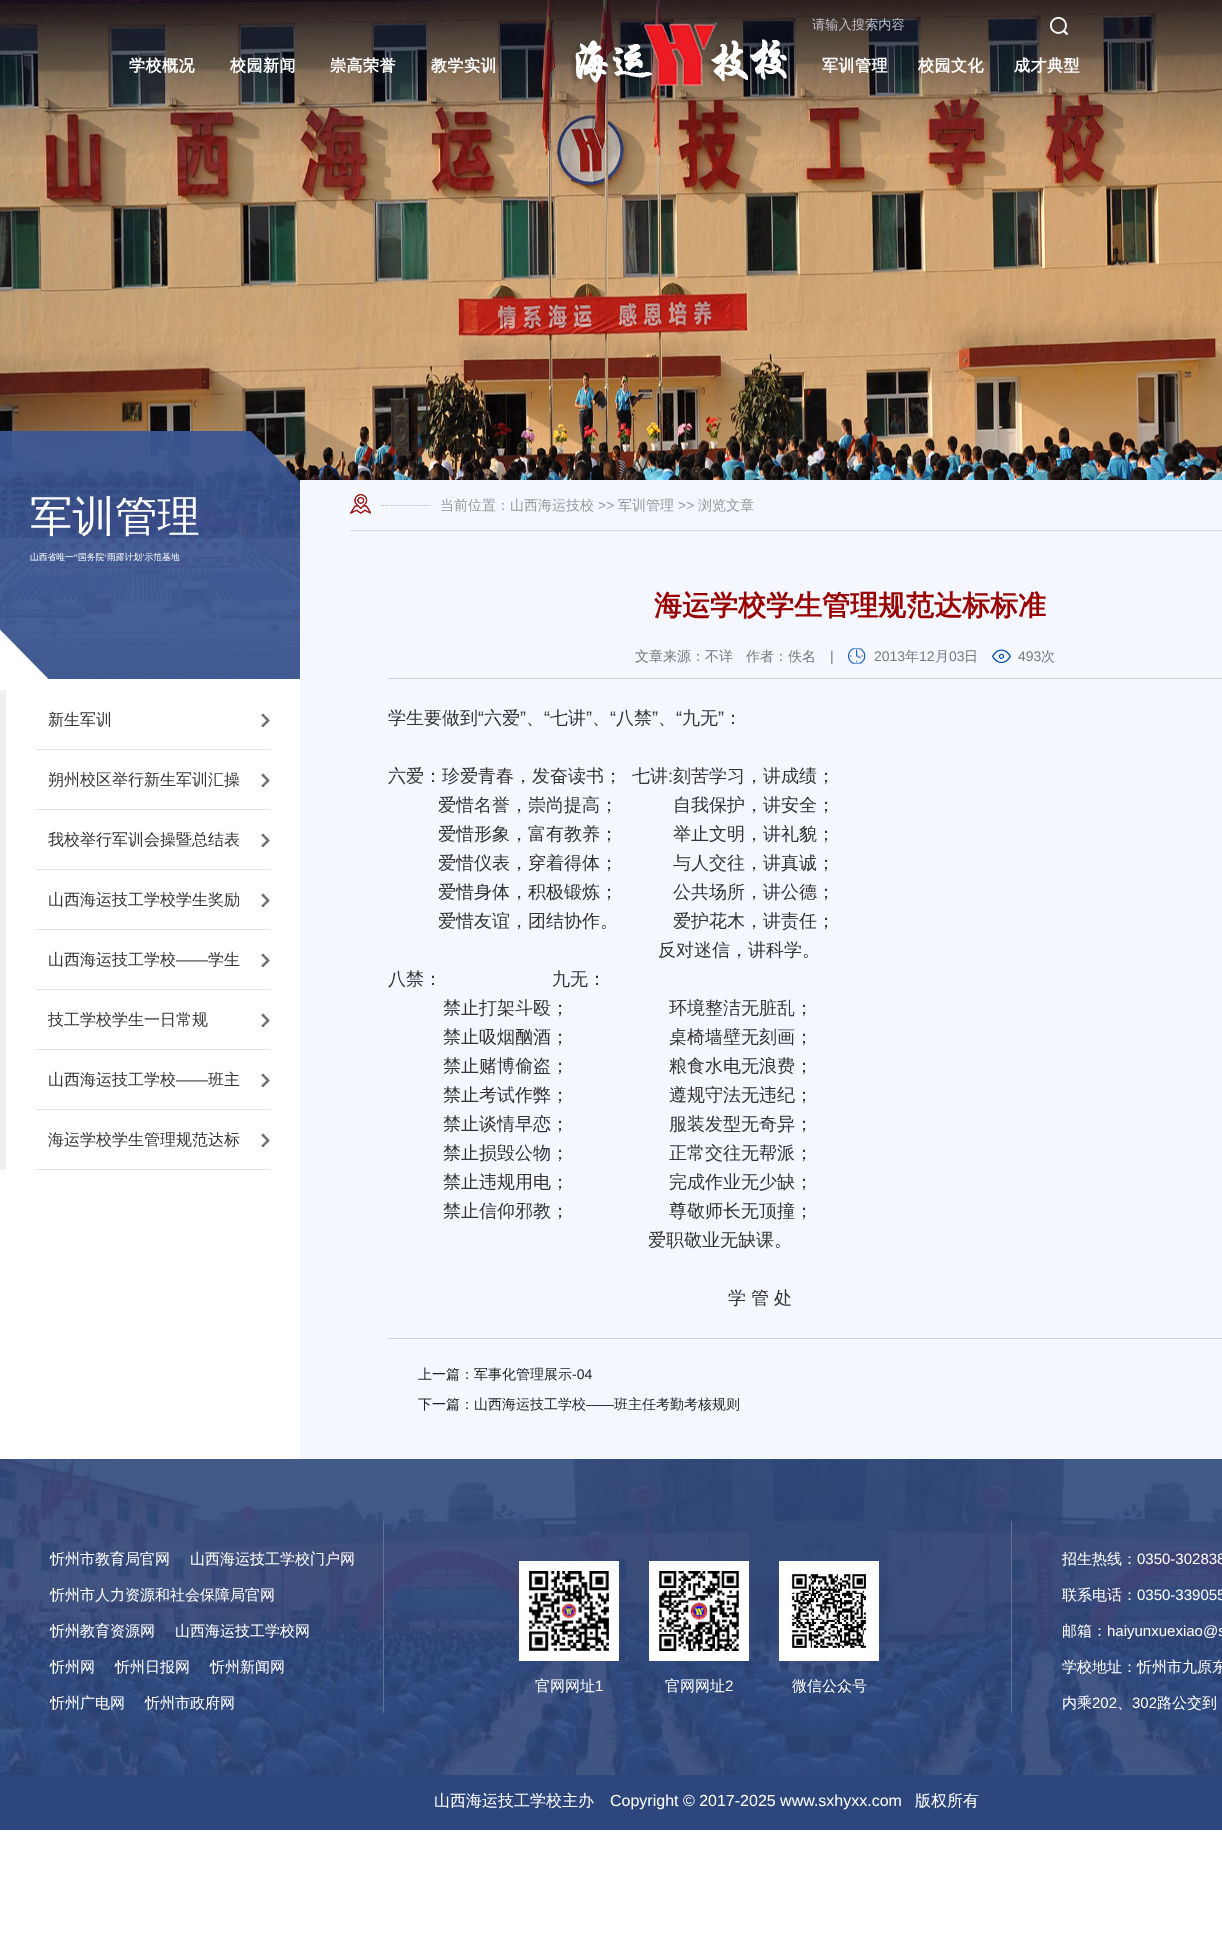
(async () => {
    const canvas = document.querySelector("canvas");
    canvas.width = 1222;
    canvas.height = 1946;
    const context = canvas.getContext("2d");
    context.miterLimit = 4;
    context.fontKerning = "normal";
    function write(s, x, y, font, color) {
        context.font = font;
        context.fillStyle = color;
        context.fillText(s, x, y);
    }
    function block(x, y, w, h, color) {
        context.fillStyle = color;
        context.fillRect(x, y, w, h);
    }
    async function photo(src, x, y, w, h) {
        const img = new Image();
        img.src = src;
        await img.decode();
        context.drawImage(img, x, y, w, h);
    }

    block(0, 0, 1222, 1946, "rgb(255, 255, 255)");
    await photo("media/1.png", 0, 0, 1222, 538);
    await photo("media/2.png", 0, 0, 1222, 155);
    write("请输入搜索内容", 812, 29, "500 13.25px WenQuanYi Zen Hei", "rgb(187, 189, 195)");
    await photo("media/3.png", 1050, 17, 18, 18);
    await photo("media/4.png", 570, 13, 217, 78);
    context.letterSpacing = "0.5px";
    write("学校概况", 129, 71, "bold 16px WenQuanYi Zen Hei", "rgb(255, 255, 255)");
    write("校园新闻", 230, 71, "bold 16px WenQuanYi Zen Hei", "rgb(255, 255, 255)");
    write("崇高荣誉", 330, 71, "bold 16px WenQuanYi Zen Hei", "rgb(255, 255, 255)");
    write("教学实训", 431, 71, "bold 16px WenQuanYi Zen Hei", "rgb(255, 255, 255)");
    write("军训管理", 822, 71, "bold 16px WenQuanYi Zen Hei", "rgb(255, 255, 255)");
    write("校园文化", 918, 71, "bold 16px WenQuanYi Zen Hei", "rgb(255, 255, 255)");
    write("成才典型", 1014, 71, "bold 16px WenQuanYi Zen Hei", "rgb(255, 255, 255)");
    await photo("media/5.png", 0, 431, 300, 248);
    context.letterSpacing = "0px";
    write("军训管理", 30, 531, "500 42.5px WenQuanYi Zen Hei", "rgb(255, 255, 255)");
    write("山西省唯一", 30, 560, "500 8.75px WenQuanYi Zen Hei", "rgb(255, 255, 255)");
    write("“", 74, 560, "8.75px Liberation Serif", "rgb(255, 255, 255)");
    write("国务院", 78, 560, "500 8.75px WenQuanYi Zen Hei", "rgb(255, 255, 255)");
    write("‘", 104, 560, "8.75px Liberation Serif", "rgb(255, 255, 255)");
    write("雨露计划 示范基地", 107, 560, "500 8.75px WenQuanYi Zen Hei", "rgb(255, 255, 255)");
    write("’", 142, 560, "8.75px Liberation Serif", "rgb(255, 255, 255)");
    block(0, 690, 6, 480, "rgb(240, 240, 240)");
    write("新生军训", 48, 725, "500 16px WenQuanYi Zen Hei", "rgb(51, 51, 51)");
    await photo("media/6.png", 261, 713, 9, 14);
    block(36, 749, 234, 1, "rgb(227, 227, 227)");
    write("朔州校区举行新生军训汇操", 48, 785, "500 16px WenQuanYi Zen Hei", "rgb(51, 51, 51)");
    await photo("media/6.png", 261, 773, 9, 14);
    block(36, 809, 234, 1, "rgb(227, 227, 227)");
    write("我校举行军训会操暨总结表", 48, 845, "500 16px WenQuanYi Zen Hei", "rgb(51, 51, 51)");
    await photo("media/6.png", 261, 833, 9, 14);
    block(36, 869, 234, 1, "rgb(227, 227, 227)");
    write("山西海运技工学校学生奖励", 48, 905, "500 16px WenQuanYi Zen Hei", "rgb(51, 51, 51)");
    await photo("media/6.png", 261, 893, 9, 14);
    block(36, 929, 234, 1, "rgb(227, 227, 227)");
    write("山西海运技工学校", 48, 965, "500 16px WenQuanYi Zen Hei", "rgb(51, 51, 51)");
    write("——", 176, 965, "16px Liberation Sans", "rgb(51, 51, 51)");
    write("学生", 208, 965, "500 16px WenQuanYi Zen Hei", "rgb(51, 51, 51)");
    await photo("media/6.png", 261, 953, 9, 14);
    block(36, 989, 234, 1, "rgb(227, 227, 227)");
    write("技工学校学生一日常规", 48, 1025, "500 16px WenQuanYi Zen Hei", "rgb(51, 51, 51)");
    await photo("media/6.png", 261, 1013, 9, 14);
    block(36, 1049, 234, 1, "rgb(227, 227, 227)");
    write("山西海运技工学校", 48, 1085, "500 16px WenQuanYi Zen Hei", "rgb(51, 51, 51)");
    write("——", 176, 1085, "16px Liberation Sans", "rgb(51, 51, 51)");
    write("班主", 208, 1085, "500 16px WenQuanYi Zen Hei", "rgb(51, 51, 51)");
    await photo("media/6.png", 261, 1073, 9, 14);
    block(36, 1109, 234, 1, "rgb(227, 227, 227)");
    write("海运学校学生管理规范达标", 48, 1145, "500 16px WenQuanYi Zen Hei", "rgb(51, 51, 51)");
    await photo("media/6.png", 261, 1133, 9, 14);
    block(36, 1169, 234, 1, "rgb(227, 227, 227)");
    block(300, 480, 922, 979, "rgb(244, 247, 254)");
    block(350, 530, 872, 1, "rgb(218, 218, 218)");
    await photo("media/7.png", 350, 494, 81, 20);
    write("当前位置：山西海运技校", 440, 510, "500 14px WenQuanYi Zen Hei", "rgb(153, 153, 153)");
    write(">>", 598, 510, "14px Liberation Sans", "rgb(153, 153, 153)");
    write("军训管理", 618, 510, "500 14px WenQuanYi Zen Hei", "rgb(153, 153, 153)");
    write(">>", 678, 510, "14px Liberation Sans", "rgb(153, 153, 153)");
    write("浏览文章", 698, 510, "500 14px WenQuanYi Zen Hei", "rgb(153, 153, 153)");
    write("海运学校学生管理规范达标标准", 654, 615, "bold 28px WenQuanYi Zen Hei", "rgb(153, 0, 0)");
    block(388, 678, 834, 1, "rgb(210, 210, 210)");
    write("文章来源：不详", 635, 661, "500 14px WenQuanYi Zen Hei", "rgb(121, 121, 121)");
    write("作者：佚名", 746, 661, "500 14px WenQuanYi Zen Hei", "rgb(121, 121, 121)");
    write("|", 830, 661, "14px Liberation Sans", "rgb(121, 121, 121)");
    await photo("media/8.png", 848, 648, 18, 16);
    write("2013", 874, 661, "14px Liberation Sans", "rgb(121, 121, 121)");
    write("年", 905, 661, "500 14px WenQuanYi Zen Hei", "rgb(121, 121, 121)");
    write("12", 919, 661, "14px Liberation Sans", "rgb(121, 121, 121)");
    write("月", 935, 661, "500 14px WenQuanYi Zen Hei", "rgb(121, 121, 121)");
    write("03", 949, 661, "14px Liberation Sans", "rgb(121, 121, 121)");
    write("日", 964, 661, "500 14px WenQuanYi Zen Hei", "rgb(121, 121, 121)");
    await photo("media/9.png", 992, 649, 19, 15);
    write("493", 1018, 661, "14px Liberation Sans", "rgb(121, 121, 121)");
    write("次", 1041, 661, "500 14px WenQuanYi Zen Hei", "rgb(121, 121, 121)");
    write("学生要做到", 388, 724, "500 18px WenQuanYi Zen Hei", "rgb(51, 51, 51)");
    write("“", 478, 724, "18px Liberation Sans", "rgb(51, 51, 51)");
    write("六爱", 484, 724, "500 18px WenQuanYi Zen Hei", "rgb(51, 51, 51)");
    write("”", 520, 724, "18px Liberation Sans", "rgb(51, 51, 51)");
    write("“", 544, 724, "18px Liberation Sans", "rgb(51, 51, 51)");
    write("七讲", 550, 724, "500 18px WenQuanYi Zen Hei", "rgb(51, 51, 51)");
    write("”", 586, 724, "18px Liberation Sans", "rgb(51, 51, 51)");
    write("“", 610, 724, "18px Liberation Sans", "rgb(51, 51, 51)");
    write("八禁", 616, 724, "500 18px WenQuanYi Zen Hei", "rgb(51, 51, 51)");
    write("”", 652, 724, "18px Liberation Sans", "rgb(51, 51, 51)");
    write("“", 676, 724, "18px Liberation Sans", "rgb(51, 51, 51)");
    write("九无", 682, 724, "500 18px WenQuanYi Zen Hei", "rgb(51, 51, 51)");
    write("”", 718, 724, "18px Liberation Sans", "rgb(51, 51, 51)");
    write("：", 724, 724, "500 18px WenQuanYi Zen Hei", "rgb(51, 51, 51)");
    write("、", 526, 724, "500 18px WenQuanYi Zen Hei", "rgb(51, 51, 51)");
    write("、", 592, 724, "500 18px WenQuanYi Zen Hei", "rgb(51, 51, 51)");
    write("、", 658, 724, "500 18px WenQuanYi Zen Hei", "rgb(51, 51, 51)");
    write("六爱：珍爱青春，发奋读书；", 388, 782, "500 18px WenQuanYi Zen Hei", "rgb(51, 51, 51)");
    write("七讲", 632, 782, "500 18px WenQuanYi Zen Hei", "rgb(51, 51, 51)");
    write(":", 668, 782, "18px Liberation Sans", "rgb(51, 51, 51)");
    write("刻苦学习，讲成绩；", 673, 782, "500 18px WenQuanYi Zen Hei", "rgb(51, 51, 51)");
    write("爱惜名誉，崇尚提高；", 438, 811, "500 18px WenQuanYi Zen Hei", "rgb(51, 51, 51)");
    write("自我保护，讲安全；", 673, 811, "500 18px WenQuanYi Zen Hei", "rgb(51, 51, 51)");
    write("爱惜形象，富有教养；", 438, 840, "500 18px WenQuanYi Zen Hei", "rgb(51, 51, 51)");
    write("举止文明，讲礼貌；", 673, 840, "500 18px WenQuanYi Zen Hei", "rgb(51, 51, 51)");
    write("爱惜仪表，穿着得体；", 438, 869, "500 18px WenQuanYi Zen Hei", "rgb(51, 51, 51)");
    write("与人交往，讲真诚；", 673, 869, "500 18px WenQuanYi Zen Hei", "rgb(51, 51, 51)");
    write("爱惜身体，积极锻炼；", 438, 898, "500 18px WenQuanYi Zen Hei", "rgb(51, 51, 51)");
    write("公共场所，讲公德；", 673, 898, "500 18px WenQuanYi Zen Hei", "rgb(51, 51, 51)");
    write("爱惜友谊，团结协作。", 438, 927, "500 18px WenQuanYi Zen Hei", "rgb(51, 51, 51)");
    write("爱护花木，讲责任；", 673, 927, "500 18px WenQuanYi Zen Hei", "rgb(51, 51, 51)");
    write("反对迷信，讲科学。", 658, 956, "500 18px WenQuanYi Zen Hei", "rgb(51, 51, 51)");
    write("八禁：", 388, 985, "500 18px WenQuanYi Zen Hei", "rgb(51, 51, 51)");
    write("九无：", 552, 985, "500 18px WenQuanYi Zen Hei", "rgb(51, 51, 51)");
    write("禁止打架斗殴；", 443, 1014, "500 18px WenQuanYi Zen Hei", "rgb(51, 51, 51)");
    write("环境整洁无脏乱；", 669, 1014, "500 18px WenQuanYi Zen Hei", "rgb(51, 51, 51)");
    write("禁止吸烟酗酒；", 443, 1043, "500 18px WenQuanYi Zen Hei", "rgb(51, 51, 51)");
    write("桌椅墙壁无刻画；", 669, 1043, "500 18px WenQuanYi Zen Hei", "rgb(51, 51, 51)");
    write("禁止赌博偷盗；", 443, 1072, "500 18px WenQuanYi Zen Hei", "rgb(51, 51, 51)");
    write("粮食水电无浪费；", 669, 1072, "500 18px WenQuanYi Zen Hei", "rgb(51, 51, 51)");
    write("禁止考试作弊；", 443, 1101, "500 18px WenQuanYi Zen Hei", "rgb(51, 51, 51)");
    write("遵规守法无违纪；", 669, 1101, "500 18px WenQuanYi Zen Hei", "rgb(51, 51, 51)");
    write("禁止谈情早恋；", 443, 1130, "500 18px WenQuanYi Zen Hei", "rgb(51, 51, 51)");
    write("服装发型无奇异；", 669, 1130, "500 18px WenQuanYi Zen Hei", "rgb(51, 51, 51)");
    write("禁止损毁公物；", 443, 1159, "500 18px WenQuanYi Zen Hei", "rgb(51, 51, 51)");
    write("正常交往无帮派；", 669, 1159, "500 18px WenQuanYi Zen Hei", "rgb(51, 51, 51)");
    write("禁止违规用电；", 443, 1188, "500 18px WenQuanYi Zen Hei", "rgb(51, 51, 51)");
    write("完成作业无少缺；", 669, 1188, "500 18px WenQuanYi Zen Hei", "rgb(51, 51, 51)");
    write("禁止信仰邪教；", 443, 1217, "500 18px WenQuanYi Zen Hei", "rgb(51, 51, 51)");
    write("尊敬师长无顶撞；", 669, 1217, "500 18px WenQuanYi Zen Hei", "rgb(51, 51, 51)");
    write("爱职敬业无缺课。", 648, 1246, "500 18px WenQuanYi Zen Hei", "rgb(51, 51, 51)");
    write("学", 728, 1304, "500 18px WenQuanYi Zen Hei", "rgb(51, 51, 51)");
    write("管", 751, 1304, "500 18px WenQuanYi Zen Hei", "rgb(51, 51, 51)");
    write("处", 774, 1304, "500 18px WenQuanYi Zen Hei", "rgb(51, 51, 51)");
    block(388, 1338, 834, 1, "rgb(210, 210, 210)");
    write("上一篇：军事化管理展示", 418, 1379, "500 14px WenQuanYi Zen Hei", "rgb(31, 31, 31)");
    write("-04", 572, 1379, "14px Liberation Sans", "rgb(31, 31, 31)");
    write("下一篇：山西海运技工学校", 418, 1409, "500 14px WenQuanYi Zen Hei", "rgb(31, 31, 31)");
    write("——", 586, 1409, "14px Liberation Sans", "rgb(31, 31, 31)");
    write("班主任考勤考核规则", 614, 1409, "500 14px WenQuanYi Zen Hei", "rgb(31, 31, 31)");
    await photo("media/10.png", 0, 1459, 1222, 371);
    block(383, 1521, 1, 192, "rgb(97, 112, 151)");
    write("忻州市教育局官网", 50, 1564, "500 15px WenQuanYi Zen Hei", "rgb(255, 255, 255)");
    write("山西海运技工学校门户网", 190, 1564, "500 15px WenQuanYi Zen Hei", "rgb(255, 255, 255)");
    write("忻州市人力资源和社会保障局官网", 50, 1600, "500 15px WenQuanYi Zen Hei", "rgb(255, 255, 255)");
    write("忻州教育资源网", 50, 1636, "500 15px WenQuanYi Zen Hei", "rgb(255, 255, 255)");
    write("山西海运技工学校网", 175, 1636, "500 15px WenQuanYi Zen Hei", "rgb(255, 255, 255)");
    write("忻州网", 50, 1672, "500 15px WenQuanYi Zen Hei", "rgb(255, 255, 255)");
    write("忻州日报网", 115, 1672, "500 15px WenQuanYi Zen Hei", "rgb(255, 255, 255)");
    write("忻州新闻网", 210, 1672, "500 15px WenQuanYi Zen Hei", "rgb(255, 255, 255)");
    write("忻州广电网", 50, 1708, "500 15px WenQuanYi Zen Hei", "rgb(255, 255, 255)");
    write("忻州市政府网", 145, 1708, "500 15px WenQuanYi Zen Hei", "rgb(255, 255, 255)");
    block(1011, 1521, 1, 192, "rgb(97, 112, 151)");
    block(519, 1561, 100, 100, "rgb(255, 255, 255)");
    await photo("media/11.png", 529, 1571, 80, 80);
    write("官网网址", 535, 1691, "500 15px WenQuanYi Zen Hei", "rgb(255, 255, 255)");
    write("1", 595, 1691, "15px Liberation Sans", "rgb(255, 255, 255)");
    block(649, 1561, 100, 100, "rgb(255, 255, 255)");
    await photo("media/12.png", 659, 1571, 80, 80);
    write("官网网址", 665, 1691, "500 15px WenQuanYi Zen Hei", "rgb(255, 255, 255)");
    write("2", 725, 1691, "15px Liberation Sans", "rgb(255, 255, 255)");
    block(779, 1561, 100, 100, "rgb(255, 255, 255)");
    await photo("media/13.png", 789, 1571, 78, 78);
    write("微信公众号", 792, 1691, "500 15px WenQuanYi Zen Hei", "rgb(255, 255, 255)");
    write("招生热线：", 1062, 1564, "500 15px WenQuanYi Zen Hei", "rgb(255, 255, 255)");
    write("0350-302838", 1137, 1564, "15px Liberation Sans", "rgb(255, 255, 255)");
    write("联系电话：", 1062, 1600, "500 15px WenQuanYi Zen Hei", "rgb(255, 255, 255)");
    write("0350-339055", 1137, 1600, "15px Liberation Sans", "rgb(255, 255, 255)");
    write("邮箱：", 1062, 1636, "500 15px WenQuanYi Zen Hei", "rgb(255, 255, 255)");
    write("haiyunxuexiao@s", 1107, 1636, "15px Liberation Sans", "rgb(255, 255, 255)");
    write("学校地址：忻州市九原东", 1062, 1672, "500 15px WenQuanYi Zen Hei", "rgb(255, 255, 255)");
    write("内乘", 1062, 1708, "500 15px WenQuanYi Zen Hei", "rgb(255, 255, 255)");
    write("202", 1092, 1708, "15px Liberation Sans", "rgb(255, 255, 255)");
    write("、", 1117, 1708, "500 15px WenQuanYi Zen Hei", "rgb(255, 255, 255)");
    write("302", 1132, 1708, "15px Liberation Sans", "rgb(255, 255, 255)");
    write("路公交到", 1157, 1708, "500 15px WenQuanYi Zen Hei", "rgb(255, 255, 255)");
    write("山西海运技工学校主办", 434, 1806, "500 16px WenQuanYi Zen Hei", "rgb(255, 255, 255)");
    write("Copyright © 2017-2025 www.sxhyxx.com", 610, 1806, "16px Liberation Sans", "rgb(255, 255, 255)");
    write("版权所有", 915, 1806, "500 16px WenQuanYi Zen Hei", "rgb(255, 255, 255)");
})();
